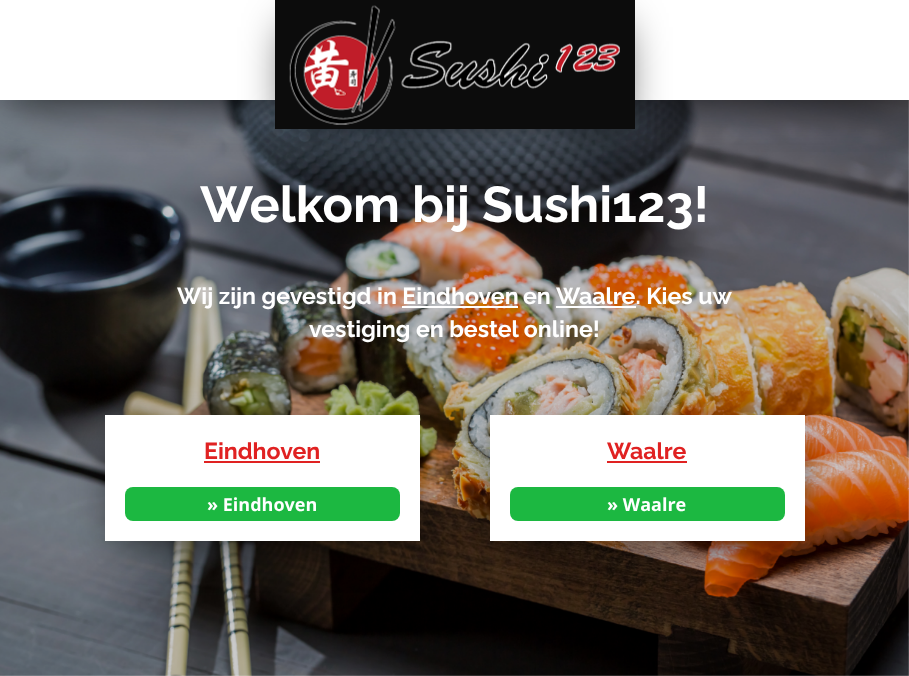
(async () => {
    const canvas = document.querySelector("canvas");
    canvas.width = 909;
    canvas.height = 676;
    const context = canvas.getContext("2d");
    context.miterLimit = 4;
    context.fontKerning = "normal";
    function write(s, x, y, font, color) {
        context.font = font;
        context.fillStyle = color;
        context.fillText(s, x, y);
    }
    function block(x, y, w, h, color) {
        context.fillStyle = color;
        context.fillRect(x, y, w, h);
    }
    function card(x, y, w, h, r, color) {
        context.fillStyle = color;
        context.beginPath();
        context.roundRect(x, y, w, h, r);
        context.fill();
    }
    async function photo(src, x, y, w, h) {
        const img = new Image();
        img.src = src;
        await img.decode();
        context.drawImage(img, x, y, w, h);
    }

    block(0, 0, 909, 676, "rgb(255, 255, 255)");
    await photo("media/1.png", 0, 100, 909, 576);
    context.fillStyle = "rgba(0, 0, 0, 0.75)";
    context.filter = "blur(22px)";
    context.beginPath();
    context.rect(13, 27, 883, 74);
    context.fill();
    context.filter = "none";
    block(0, 0, 909, 100, "rgb(255, 255, 255)");
    context.fillStyle = "rgba(0, 0, 0, 0.75)";
    context.filter = "blur(22px)";
    context.beginPath();
    context.rect(288, 27, 334, 103);
    context.fill();
    context.filter = "none";
    block(275, 0, 360, 129, "rgb(12, 12, 12)");
    await photo("media/2.png", 289, 5, 331, 120);
    write("Welkom bij Sushi123!", 200, 222, "bold 50.4px Raleway", "rgb(255, 255, 255)");
    write("Wij zijn gevestigd in Eindhoven", 177, 304, "bold 23.1px Raleway", "rgb(255, 255, 255)");
    write("en", 523, 304, "bold 23.1px Raleway", "rgb(255, 255, 255)");
    write("Waalre. Kies uw", 556, 304, "bold 23.1px Raleway", "rgb(255, 255, 255)");
    block(556, 306, 80, 2, "rgb(255, 255, 255)");
    block(402, 306, 116, 2, "rgb(255, 255, 255)");
    write("vestiging en bestel online!", 309, 337, "bold 23.1px Raleway", "rgb(255, 255, 255)");
    context.fillStyle = "rgba(0, 0, 0, 0.75)";
    context.filter = "blur(22px)";
    context.beginPath();
    context.rect(118, 442, 289, 100);
    context.fill();
    context.filter = "none";
    block(105, 415, 315, 126, "rgb(255, 255, 255)");
    write("Eindhoven", 204, 459, "bold 23.1px Raleway", "rgb(224, 34, 34)");
    block(204, 461, 116, 2, "rgb(224, 34, 34)");
    card(125, 487, 275, 34, 8, "rgb(28, 184, 65)");
    write("» Eindhoven", 207, 511, "bold 18px Open Sans", "rgb(255, 255, 255)");
    context.fillStyle = "rgba(0, 0, 0, 0.75)";
    context.filter = "blur(22px)";
    context.beginPath();
    context.rect(503, 442, 289, 100);
    context.fill();
    context.filter = "none";
    block(490, 415, 315, 126, "rgb(255, 255, 255)");
    write("Waalre", 607, 459, "bold 23.1px Raleway", "rgb(224, 34, 34)");
    block(607, 461, 80, 2, "rgb(224, 34, 34)");
    card(510, 487, 275, 34, 8, "rgb(28, 184, 65)");
    write("» Waalre", 607, 511, "bold 18px Open Sans", "rgb(255, 255, 255)");
})();
